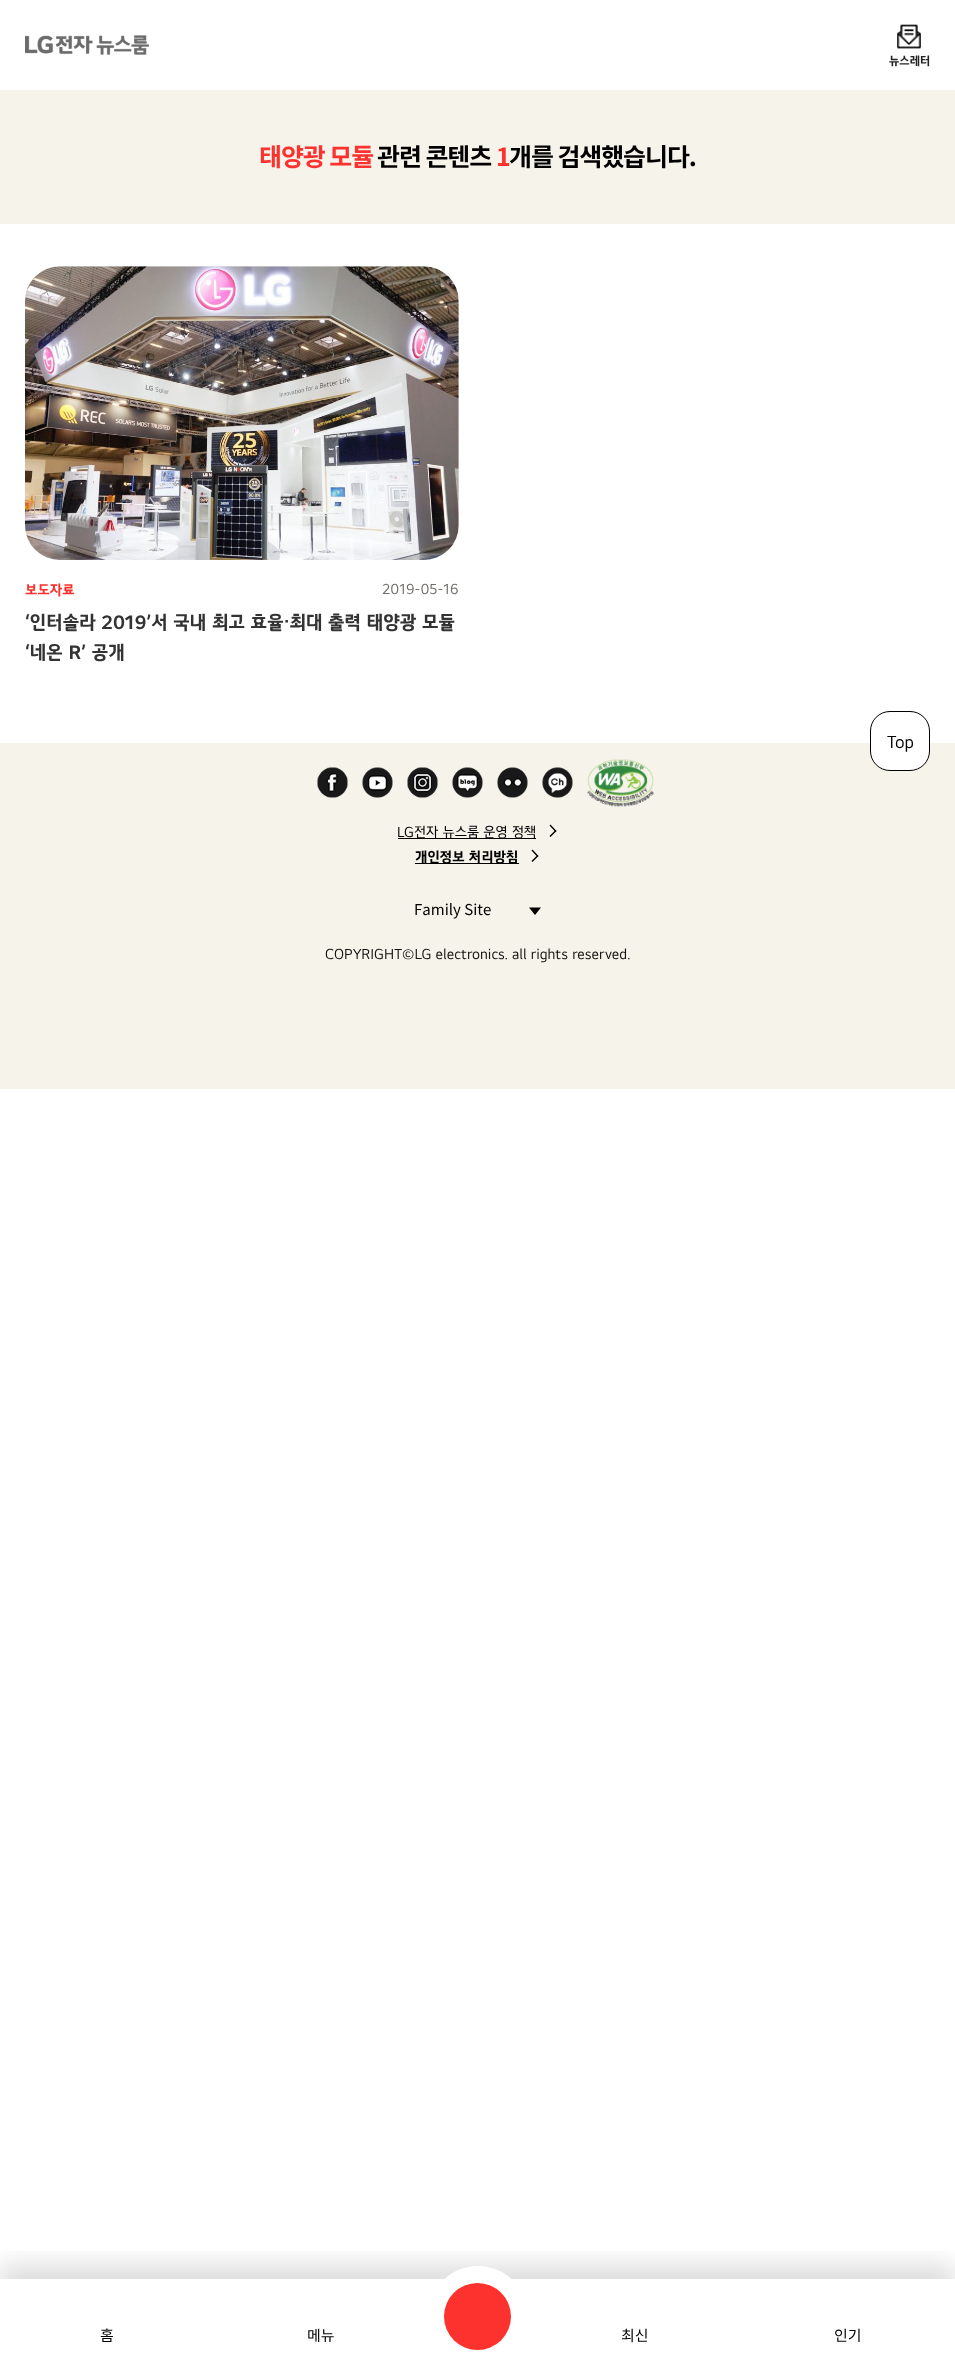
(async () => {
    const canvas = document.querySelector("canvas");
    canvas.width = 955;
    canvas.height = 2366;
    const context = canvas.getContext("2d");
    context.miterLimit = 4;
    context.fontKerning = "normal";
    function write(s, x, y, font, color) {
        context.font = font;
        context.fillStyle = color;
        context.fillText(s, x, y);
    }
    function block(x, y, w, h, color) {
        context.fillStyle = color;
        context.fillRect(x, y, w, h);
    }
    function card(x, y, w, h, r, color) {
        context.fillStyle = color;
        context.beginPath();
        context.roundRect(x, y, w, h, r);
        context.fill();
    }
    async function photo(src, x, y, w, h) {
        const img = new Image();
        img.src = src;
        await img.decode();
        context.drawImage(img, x, y, w, h);
    }

    block(0, 0, 955, 2366, "rgb(255, 255, 255)");
    await photo("media/1.png", 25, 35, 124, 20);
    await photo("media/2.png", 897, 24, 24, 25);
    write("뉴스레터", 889, 65, "bold 12.5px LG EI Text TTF", "rgb(34, 34, 34)");
    block(0, 90, 955, 134, "rgb(246, 243, 235)");
    context.letterSpacing = "-1.1px";
    write("태양광 모듈", 259, 166, "bold 25px Noto Sans KR", "rgb(253, 49, 46)");
    write("관련 콘텐츠", 377, 166, "bold 25px Noto Sans KR", "rgb(0, 0, 0)");
    write("1", 496, 166, "bold 25px Noto Sans KR", "rgb(253, 49, 46)");
    write("개를 검색했습니다.", 509, 166, "bold 25px Noto Sans KR", "rgb(0, 0, 0)");
    card(25, 266, 434, 294, 35, "rgb(244, 244, 244)");
    await photo("media/3.png", 25, 266, 434, 294);
    context.letterSpacing = "0px";
    write("보도자료", 25, 595, "bold 15px LG EI Text TTF", "rgb(253, 49, 46)");
    write("2019-05-16", 382, 594, "15px LG EI Text TTF", "rgb(113, 111, 106)");
    write("‘인터솔라 2019’서 국내 최고 효율・최대 출력 태양광 모듈", 25, 629, "bold 20px LG EI Text TTF", "rgb(51, 51, 51)");
    write("‘네온 R’ 공개", 25, 659, "bold 20px LG EI Text TTF", "rgb(51, 51, 51)");
    block(0, 743, 955, 346, "rgb(246, 243, 235)");
    context.fillStyle = "rgb(255, 255, 255)";
    context.beginPath();
    context.roundRect(870.5, 711.5, 59, 59, 19.5);
    context.fill();
    context.strokeStyle = "rgb(0, 0, 0)";
    context.stroke();
    write("Top", 887, 748, "18px LG EI Text TTF", "rgb(0, 0, 0)");
    await photo("media/4.png", 317, 767, 31, 31);
    await photo("media/5.png", 362, 767, 31, 31);
    await photo("media/6.png", 407, 767, 31, 31);
    await photo("media/7.png", 452, 767, 31, 31);
    await photo("media/8.png", 497, 767, 31, 31);
    await photo("media/9.png", 542, 767, 31, 31);
    await photo("media/10.png", 587, 759, 67, 48);
    block(398, 838, 138, 1, "rgb(0, 0, 0)");
    write("LG전자 뉴스룸 운영 정책", 397, 837, "15px LG EI Text TTF", "rgb(0, 0, 0)");
    context.beginPath();
    context.moveTo(550.5, 824.5);
    context.lineTo(556.5, 831);
    context.lineTo(555.5, 832);
    context.lineTo(549.5, 825.5);
    context.closePath();
    context.fill();
    context.beginPath();
    context.moveTo(555.5, 830);
    context.lineTo(556.5, 831);
    context.lineTo(550.5, 837);
    context.lineTo(549.5, 836);
    context.closePath();
    context.moveTo(532.5, 849.5);
    context.lineTo(538.5, 856);
    context.lineTo(537.5, 857);
    context.lineTo(531.5, 850.5);
    context.closePath();
    context.fill();
    block(415, 863, 104, 1, "rgb(0, 0, 0)");
    write("개인정보 처리방침", 415, 862, "bold 15px LG EI Text TTF", "rgb(0, 0, 0)");
    context.beginPath();
    context.moveTo(537.5, 855);
    context.lineTo(538.5, 856);
    context.lineTo(532.5, 862);
    context.lineTo(531.5, 861);
    context.closePath();
    context.fill();
    write("Family Site", 414, 915, "15px Noto Sans KR", "rgb(0, 0, 0)");
    context.beginPath();
    context.moveTo(529, 907.5);
    context.lineTo(541, 907.5);
    context.lineTo(535, 915);
    context.closePath();
    context.fill();
    write("COPYRIGHT©LG electronics. all rights reserved.", 325, 959, "15px LG EI Text TTF", "rgb(19, 17, 17)");
    context.save();
    context.beginPath();
    context.rect(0, 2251, 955, 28);
    context.clip();
    context.fillStyle = "rgba(0, 0, 0, 0.13)";
    context.filter = "blur(12.5px)";
    context.beginPath();
    context.rect(0, 2264, 955, 87);
    context.fill();
    context.filter = "none";
    context.restore();
    write("홈", 100, 2341, "15px Noto Sans KR", "rgb(0, 0, 0)");
    write("메뉴", 307, 2341, "15px Noto Sans KR", "rgb(0, 0, 0)");
    context.fillStyle = "rgb(255, 255, 255)";
    context.beginPath();
    context.arc(478, 2316, 50, 0, Math.PI * 2);
    context.fill();
    context.fillStyle = "rgb(253, 49, 46)";
    context.beginPath();
    context.arc(477.5, 2316.5, 33.5, 0, Math.PI * 2);
    context.fill();
    write("최신", 621, 2341, "15px Noto Sans KR", "rgb(0, 0, 0)");
    write("인기", 834, 2341, "15px Noto Sans KR", "rgb(0, 0, 0)");
})();
